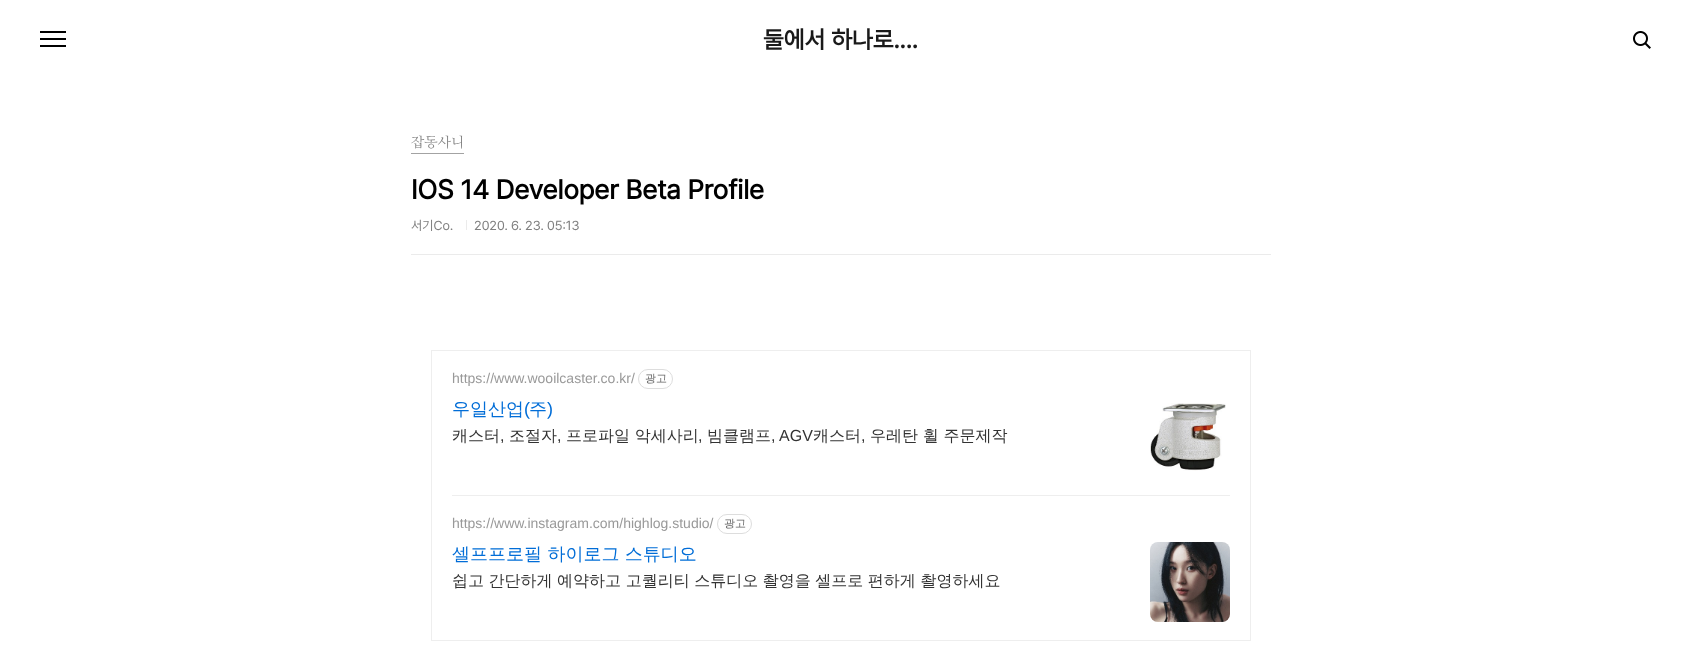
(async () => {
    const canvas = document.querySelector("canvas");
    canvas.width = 1681;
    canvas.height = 658;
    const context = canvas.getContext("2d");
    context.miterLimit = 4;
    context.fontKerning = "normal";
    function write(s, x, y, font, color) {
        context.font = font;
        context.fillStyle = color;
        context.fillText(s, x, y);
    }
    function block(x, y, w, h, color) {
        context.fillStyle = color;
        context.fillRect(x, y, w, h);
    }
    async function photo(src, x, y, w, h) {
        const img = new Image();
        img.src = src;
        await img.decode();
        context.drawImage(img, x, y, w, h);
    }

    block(0, 0, 1681, 658, "rgb(255, 255, 255)");
    block(40, 31, 26, 2, "rgb(0, 0, 0)");
    block(40, 38, 26, 2, "rgb(0, 0, 0)");
    block(40, 45, 26, 2, "rgb(0, 0, 0)");
    write("둘에서 하나로....", 763, 48, "bold 24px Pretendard", "rgb(26, 26, 26)");
    await photo("media/1.png", 1633, 31, 18, 18);
    block(411, 254, 860, 1, "rgb(235, 235, 235)");
    block(411, 153, 53, 1, "rgb(163, 163, 163)");
    write("잡동사니", 411, 147, "14px NanumMyeongjo", "rgb(128, 128, 128)");
    write("IOS 14 Developer Beta Profile", 411, 199, "bold 27px Pretendard", "rgb(0, 0, 0)");
    write("서기㏇", 411, 230, "13px Pretendard", "rgb(128, 128, 128)");
    block(466, 220, 1, 10, "rgb(235, 235, 235)");
    write("2020. 6. 23. 05:13", 474, 230, "13px Pretendard", "rgb(128, 128, 128)");
    context.strokeStyle = "rgb(238, 238, 238)";
    context.strokeRect(431.5, 350.5, 819, 290);
    write("https://www.wooilcaster.co.kr/", 452, 383, "14px Liberation Sans", "rgb(153, 153, 153)");
    context.beginPath();
    context.roundRect(638.5, 369.5, 34, 19, 9.5);
    context.strokeStyle = "rgb(221, 221, 221)";
    context.stroke();
    write("광고", 645, 382, "500 11px WenQuanYi Zen Hei", "rgb(102, 102, 102)");
    write("우일산업", 452, 415, "500 18px WenQuanYi Zen Hei", "rgb(1, 109, 215)");
    write("(", 524, 415, "18px Liberation Sans", "rgb(1, 109, 215)");
    write("주", 529, 415, "500 18px WenQuanYi Zen Hei", "rgb(1, 109, 215)");
    write(")", 547, 415, "18px Liberation Sans", "rgb(1, 109, 215)");
    write("캐스터", 452, 441, "500 16px WenQuanYi Zen Hei", "rgb(51, 51, 51)");
    write(",", 500, 441, "16px Liberation Sans", "rgb(51, 51, 51)");
    write("조절자", 509, 441, "500 16px WenQuanYi Zen Hei", "rgb(51, 51, 51)");
    write(",", 557, 441, "16px Liberation Sans", "rgb(51, 51, 51)");
    write("프로파일 악세사리", 566, 441, "500 16px WenQuanYi Zen Hei", "rgb(51, 51, 51)");
    write(",", 698, 441, "16px Liberation Sans", "rgb(51, 51, 51)");
    write("빔클램프", 707, 441, "500 16px WenQuanYi Zen Hei", "rgb(51, 51, 51)");
    write(", AGV", 771, 441, "16px Liberation Sans", "rgb(51, 51, 51)");
    write("캐스터", 813, 441, "500 16px WenQuanYi Zen Hei", "rgb(51, 51, 51)");
    write(",", 861, 441, "16px Liberation Sans", "rgb(51, 51, 51)");
    write("우레탄 휠 주문제작", 870, 441, "500 16px WenQuanYi Zen Hei", "rgb(51, 51, 51)");
    await photo("media/2.png", 1150, 403, 76, 68);
    block(452, 495, 778, 1, "rgb(238, 238, 238)");
    write("https://www.instagram.com/highlog.studio/", 452, 528, "14px Liberation Sans", "rgb(153, 153, 153)");
    context.beginPath();
    context.roundRect(717.5, 514.5, 34, 19, 9.5);
    context.stroke();
    write("광고", 724, 527, "500 11px WenQuanYi Zen Hei", "rgb(102, 102, 102)");
    write("셀프프로필 하이로그 스튜디오", 452, 560, "500 18px WenQuanYi Zen Hei", "rgb(1, 109, 215)");
    context.wordSpacing = "-0.25px";
    write("쉽고 간단하게 예약하고 고퀄리티 스튜디오 촬영을 셀프로 편하게 촬영하세요", 452, 586, "500 16px WenQuanYi Zen Hei", "rgb(51, 51, 51)");
    await photo("media/3.png", 1150, 542, 80, 80);
})();
